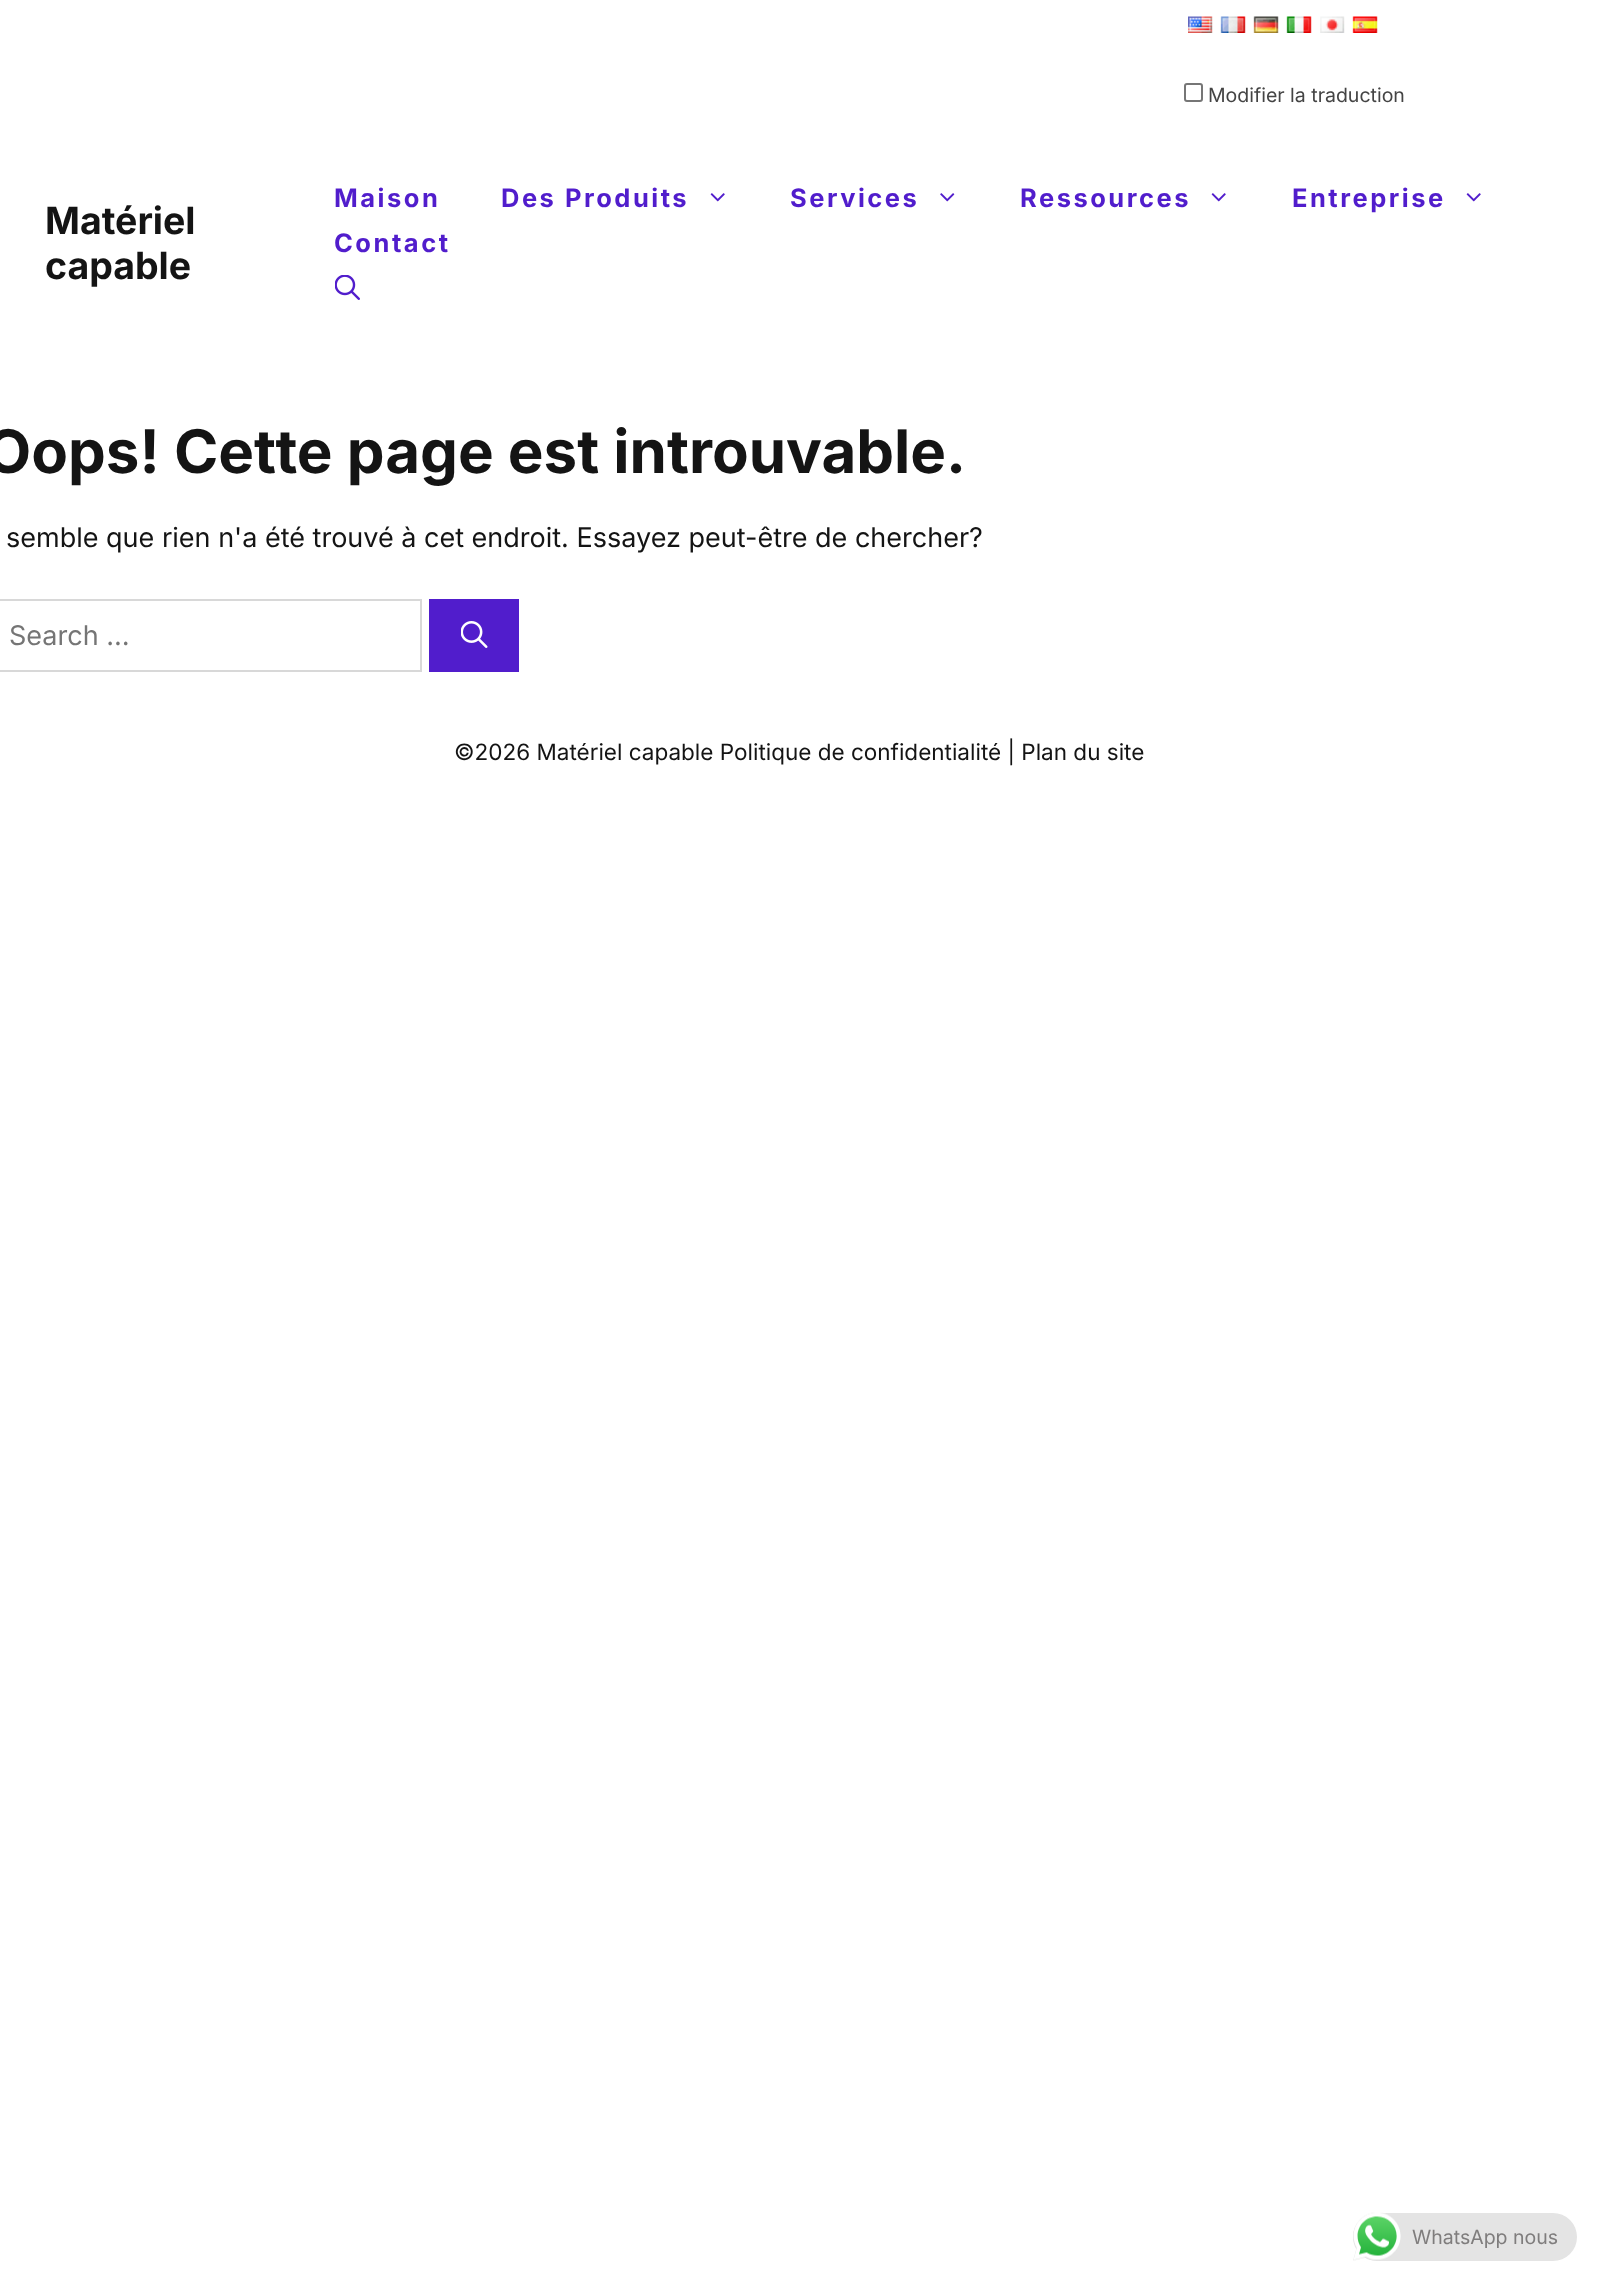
(async () => {
    const canvas = document.querySelector("canvas");
    canvas.width = 1598;
    canvas.height = 2283;
    const context = canvas.getContext("2d");
    context.miterLimit = 4;
    context.fontKerning = "normal";
    function write(s, x, y, font, color) {
        context.font = font;
        context.fillStyle = color;
        context.fillText(s, x, y);
    }
    function block(x, y, w, h, color) {
        context.fillStyle = color;
        context.fillRect(x, y, w, h);
    }
    function card(x, y, w, h, r, color) {
        context.fillStyle = color;
        context.beginPath();
        context.roundRect(x, y, w, h, r);
        context.fill();
    }
    async function photo(src, x, y, w, h) {
        const img = new Image();
        img.src = src;
        await img.decode();
        context.drawImage(img, x, y, w, h);
    }

    block(0, 0, 1598, 2283, "rgb(255, 255, 255)");
    await photo("media/1.png", 1188, 16, 25, 17);
    await photo("media/2.png", 1220, 16, 26, 17);
    await photo("media/3.png", 1253, 16, 26, 17);
    await photo("media/4.png", 1286, 16, 26, 17);
    await photo("media/5.png", 1320, 16, 25, 17);
    await photo("media/6.png", 1352, 16, 26, 17);
    context.beginPath();
    context.roundRect(1185, 84, 17, 17, 2);
    context.strokeStyle = "rgb(118, 118, 118)";
    context.lineWidth = 2;
    context.stroke();
    write("Modifier la traduction", 1208, 102, "19.5px Inter", "rgb(68, 68, 68)");
    write("Matériel", 45, 234, "bold 37.5px Inter", "rgb(20, 20, 20)");
    write("capable", 45, 279, "bold 37.5px Inter", "rgb(20, 20, 20)");
    context.letterSpacing = "2.5px";
    write("Maison", 334, 207, "bold 25.5px Inter", "rgb(81, 29, 204)");
    write("Des Produits", 501, 207, "bold 25.5px Inter", "rgb(81, 29, 204)");
    await photo("media/7.png", 710, 193, 15, 9);
    write("Services", 790, 207, "bold 25.5px Inter", "rgb(81, 29, 204)");
    await photo("media/8.png", 940, 193, 15, 9);
    write("Ressources", 1020, 207, "bold 25.5px Inter", "rgb(81, 29, 204)");
    await photo("media/7.png", 1211, 193, 15, 9);
    write("Entreprise", 1292, 207, "bold 25.5px Inter", "rgb(81, 29, 204)");
    await photo("media/7.png", 1466, 193, 15, 9);
    write("Contact", 334, 252, "bold 25.5px Inter", "rgb(81, 29, 204)");
    await photo("media/9.png", 335, 275, 25, 25);
    context.letterSpacing = "0px";
    write("Oops! Cette page est introuvable.", -15, 473, "bold 60px Inter", "rgb(20, 20, 20)");
    write("semble que rien n'a été trouvé à cet endroit. Essayez peut-être de chercher?", 6, 547, "27px Inter", "rgb(20, 20, 20)");
    context.strokeStyle = "rgb(216, 216, 216)";
    context.strokeRect(-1, 600, 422, 71);
    write("Search …", 9, 645, "27px Inter", "rgb(117, 117, 117)");
    block(429, 599, 90, 73, "rgb(81, 29, 204)");
    await photo("media/10.png", 461, 621, 27, 27);
    write("©2026 Matériel capable Politique de confidentialité | Plan du site", 454, 760, "22.5px Inter", "rgb(20, 20, 20)");
    card(1353, 2213, 224, 48, 24, "rgb(228, 228, 228)");
    await photo("media/11.png", 1353, 2212, 48, 49);
    write("WhatsApp nous", 1412, 2244, "19.5px Inter", "rgb(127, 125, 125)");
})();
